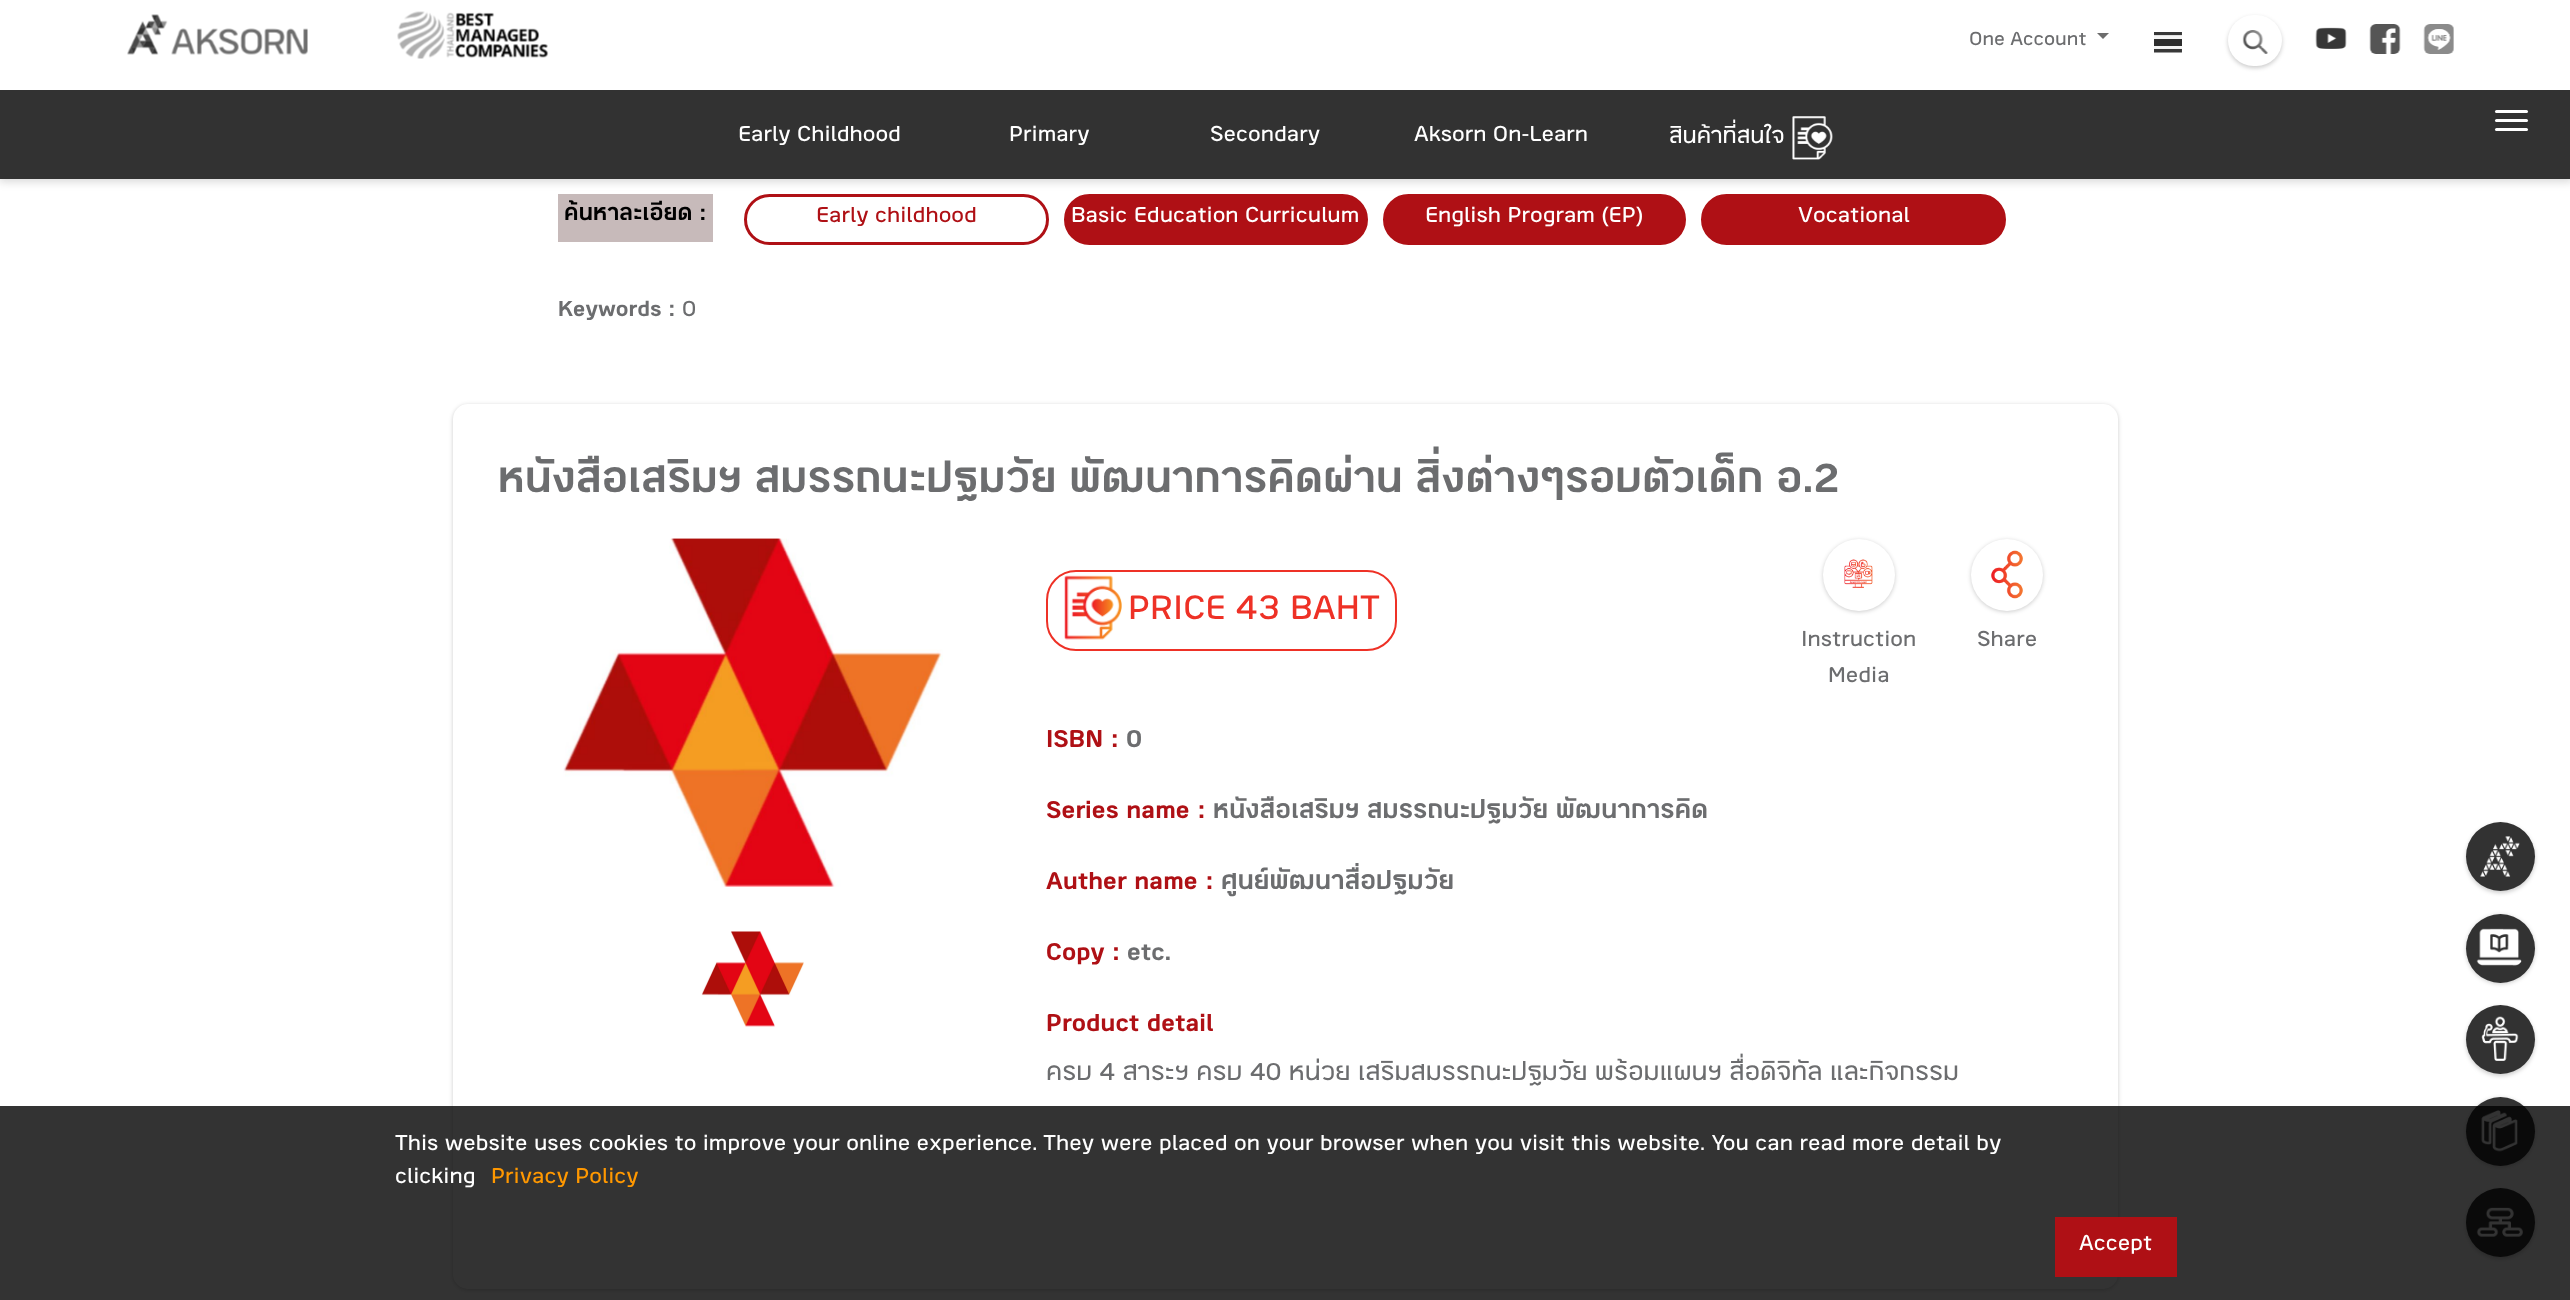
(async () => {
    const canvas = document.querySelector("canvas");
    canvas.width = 2570;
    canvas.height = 1300;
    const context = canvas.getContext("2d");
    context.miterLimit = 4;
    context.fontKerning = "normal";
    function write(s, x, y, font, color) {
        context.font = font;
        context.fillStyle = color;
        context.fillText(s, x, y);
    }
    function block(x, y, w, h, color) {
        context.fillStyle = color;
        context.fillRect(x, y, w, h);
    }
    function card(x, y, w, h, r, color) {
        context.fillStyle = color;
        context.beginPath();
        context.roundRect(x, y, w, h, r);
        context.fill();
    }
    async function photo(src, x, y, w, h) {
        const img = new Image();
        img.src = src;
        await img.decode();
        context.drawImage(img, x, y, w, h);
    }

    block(0, 0, 2570, 1300, "rgb(255, 255, 255)");
    block(558, 194, 155, 48, "rgb(199, 186, 186)");
    context.beginPath();
    context.roundRect(745.5, 195.5, 302, 48, 24);
    context.strokeStyle = "rgb(175, 16, 21)";
    context.lineWidth = 3;
    context.stroke();
    context.fillStyle = "rgb(175, 16, 21)";
    context.beginPath();
    context.roundRect(1065.5, 195.5, 301, 48, 24);
    context.fill();
    context.stroke();
    context.beginPath();
    context.roundRect(1384.5, 195.5, 300, 48, 24);
    context.fill();
    context.stroke();
    context.beginPath();
    context.roundRect(1702.5, 195.5, 302, 48, 24);
    context.fill();
    context.stroke();
    context.fillStyle = "rgba(0, 0, 0, 0.15)";
    context.filter = "blur(4.5px)";
    context.beginPath();
    context.rect(-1, 0, 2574, 182);
    context.fill();
    context.filter = "none";
    block(0, 0, 2570, 90, "rgb(255, 255, 255)");
    await photo("media/1.png", 127, 14, 181, 41);
    await photo("media/2.png", 397, 11, 152, 48);
    write("One Account", 1969, 45, "21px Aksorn", "rgb(108, 109, 111)");
    context.fillStyle = "rgb(109, 109, 109)";
    context.beginPath();
    context.moveTo(2097, 33);
    context.lineTo(2109, 33);
    context.lineTo(2103, 39);
    context.closePath();
    context.fill();
    await photo("media/3.png", 2154, 32, 28, 21);
    context.fillStyle = "rgba(0, 0, 0, 0.2)";
    context.filter = "blur(2px)";
    context.beginPath();
    context.roundRect(2228, 17, 54, 51, 25.5);
    context.fill();
    context.filter = "none";
    card(2228, 15, 54, 51, 25.5, "rgb(255, 255, 255)");
    await photo("media/4.png", 2242, 30, 26, 24);
    await photo("media/5.png", 2315, 27, 32, 22);
    await photo("media/6.png", 2369, 24, 32, 30);
    await photo("media/7.png", 2423, 24, 31, 30);
    block(0, 90, 2570, 89, "rgb(50, 50, 50)");
    write("Early Childhood", 738, 141, "24px Aksorn", "rgb(255, 255, 255)");
    write("Primary", 1009, 141, "24px Aksorn", "rgb(255, 255, 255)");
    write("Secondary", 1210, 141, "24px Aksorn", "rgb(255, 255, 255)");
    write("Aksorn On-Learn", 1414, 141, "24px Aksorn", "rgb(255, 255, 255)");
    write("สินค้าที่สนใจ", 1669, 143, "24px Aksorn", "rgb(255, 255, 255)");
    await photo("media/8.png", 1792, 116, 41, 44);
    card(2495, 110, 33, 3, 1.5, "rgb(255, 255, 255)");
    card(2495, 119, 33, 3, 1.5, "rgb(255, 255, 255)");
    card(2495, 128, 33, 3, 1.5, "rgb(255, 255, 255)");
    write("ค้นหาละเอียด :", 564, 220, "bold 24px Aksorn", "rgb(0, 0, 0)");
    write("Early childhood", 816, 222, "24px Aksorn", "rgb(175, 16, 21)");
    write("Basic Education Curriculum", 1071, 222, "24px Aksorn", "rgb(255, 255, 255)");
    write("English Program (EP)", 1425, 222, "24px Aksorn", "rgb(255, 255, 255)");
    write("Vocational", 1798, 222, "24px Aksorn", "rgb(255, 255, 255)");
    write("Keywords :", 558, 316, "bold 24px Aksorn", "rgb(108, 109, 111)");
    write("0", 682, 316, "24px Aksorn", "rgb(108, 109, 111)");
    context.fillStyle = "rgba(0, 0, 0, 0.2)";
    context.filter = "blur(2px)";
    context.beginPath();
    context.roundRect(453, 405, 1665, 885, 15);
    context.fill();
    context.filter = "none";
    card(453, 404, 1665, 885, 15, "rgb(255, 255, 255)");
    write("หนังสือเสริมฯ สมรรถนะปฐมวัย พัฒนาการคิดผ่าน สิ่งต่างๆรอบตัวเด็ก อ.2", 498, 492, "bold 45px Aksorn", "rgb(108, 109, 111)");
    await photo("media/9.png", 563, 538, 380, 349);
    await photo("media/10.png", 701, 931, 103, 96);
    context.beginPath();
    context.roundRect(1047, 571, 349, 79, 29);
    context.strokeStyle = "rgb(238, 49, 38)";
    context.lineWidth = 2;
    context.stroke();
    await photo("media/11.png", 1064, 575, 58, 65);
    write("PRICE 43 BAHT", 1128, 619, "37.5px Aksorn", "rgb(238, 49, 38)");
    context.fillStyle = "rgba(0, 0, 0, 0.2)";
    context.filter = "blur(2px)";
    context.beginPath();
    context.roundRect(1823, 540, 72, 72, 36);
    context.fill();
    context.filter = "none";
    context.fillStyle = "rgb(255, 255, 255)";
    context.beginPath();
    context.arc(1859, 575, 36, 0, Math.PI * 2);
    context.fill();
    await photo("media/12.png", 1844, 559, 29, 29);
    write("Instruction", 1801, 646, "24px Aksorn", "rgb(108, 109, 111)");
    write("Media", 1828, 682, "24px Aksorn", "rgb(108, 109, 111)");
    context.fillStyle = "rgba(0, 0, 0, 0.2)";
    context.filter = "blur(2px)";
    context.beginPath();
    context.roundRect(1971, 540, 72, 72, 36);
    context.fill();
    context.filter = "none";
    context.fillStyle = "rgb(255, 255, 255)";
    context.beginPath();
    context.arc(2007, 575, 36, 0, Math.PI * 2);
    context.fill();
    await photo("media/13.png", 1991, 550, 32, 49);
    write("Share", 1977, 646, "24px Aksorn", "rgb(108, 109, 111)");
    write("ISBN :", 1046, 747, "bold 27px Aksorn", "rgb(175, 16, 21)");
    write("0", 1126, 747, "bold 27px Aksorn", "rgb(108, 109, 111)");
    write("Series name :", 1046, 818, "bold 27px Aksorn", "rgb(175, 16, 21)");
    write("หนังสือเสริมฯ สมรรถนะปฐมวัย พัฒนาการคิด", 1213, 818, "bold 27px Aksorn", "rgb(108, 109, 111)");
    write("Auther name :", 1046, 889, "bold 27px Aksorn", "rgb(175, 16, 21)");
    context.save();
    context.beginPath();
    context.rect(1046, 863, 1005, 48);
    context.clip();
    write("ศูนย์พัฒนาสื่อปฐมวัย", 1221, 889, "bold 27px Aksorn", "rgb(108, 109, 111)");
    context.restore();
    write("Copy :", 1046, 960, "bold 27px Aksorn", "rgb(175, 16, 21)");
    write("etc.", 1127, 960, "bold 27px Aksorn", "rgb(108, 109, 111)");
    write("Product detail", 1046, 1031, "bold 27px Aksorn", "rgb(175, 16, 21)");
    write("ครบ 4 สาระฯ ครบ 40 หน่วย เสริมสมรรถนะปฐมวัย พร้อมแผนฯ สื่อดิจิทัล และกิจกรรม", 1046, 1080, "27px Aksorn", "rgb(108, 109, 111)");
    context.fillStyle = "rgba(0, 0, 0, 0.2)";
    context.filter = "blur(2px)";
    context.beginPath();
    context.roundRect(2466, 824, 69, 69, 34.5);
    context.fill();
    context.filter = "none";
    context.fillStyle = "rgb(50, 50, 50)";
    context.beginPath();
    context.arc(2500.5, 856.5, 34.5, 0, Math.PI * 2);
    context.fill();
    await photo("media/14.png", 2480, 836, 40, 41);
    context.fillStyle = "rgba(0, 0, 0, 0.2)";
    context.filter = "blur(2px)";
    context.beginPath();
    context.roundRect(2466, 915, 69, 69, 34.5);
    context.fill();
    context.filter = "none";
    context.fillStyle = "rgb(50, 50, 50)";
    context.beginPath();
    context.arc(2500.5, 948.5, 34.5, 0, Math.PI * 2);
    context.fill();
    await photo("media/15.png", 2476, 928, 46, 38);
    context.fillStyle = "rgba(0, 0, 0, 0.2)";
    context.filter = "blur(2px)";
    context.beginPath();
    context.roundRect(2466, 1007, 69, 69, 34.5);
    context.fill();
    context.filter = "none";
    context.fillStyle = "rgb(50, 50, 50)";
    context.beginPath();
    context.arc(2500.5, 1039.5, 34.5, 0, Math.PI * 2);
    context.fill();
    await photo("media/16.png", 2481, 1016, 38, 45);
    context.fillStyle = "rgba(0, 0, 0, 0.2)";
    context.filter = "blur(2px)";
    context.beginPath();
    context.roundRect(2466, 1098, 69, 69, 34.5);
    context.fill();
    context.filter = "none";
    context.fillStyle = "rgb(50, 50, 50)";
    context.beginPath();
    context.arc(2500.5, 1131.5, 34.5, 0, Math.PI * 2);
    context.fill();
    await photo("media/17.png", 2481, 1110, 37, 42);
    context.fillStyle = "rgba(0, 0, 0, 0.2)";
    context.filter = "blur(2px)";
    context.beginPath();
    context.roundRect(2466, 1190, 69, 69, 34.5);
    context.fill();
    context.filter = "none";
    context.fillStyle = "rgb(50, 50, 50)";
    context.beginPath();
    context.arc(2500.5, 1222.5, 34.5, 0, Math.PI * 2);
    context.fill();
    await photo("media/18.png", 2476, 1207, 47, 30);
    block(0, 1106, 2570, 194, "rgba(0, 0, 0, 0.8)");
    write("This website uses cookies to improve your online experience. They were placed on your browser when you visit this website. You can read more detail by", 395, 1150, "24px Aksorn", "rgb(255, 255, 255)");
    write("clicking", 395, 1183, "24px Aksorn", "rgb(255, 255, 255)");
    write("Privacy Policy", 491, 1183, "24px Aksorn", "rgb(255, 152, 0)");
    block(2055, 1217, 122, 60, "rgb(175, 16, 21)");
    write("Accept", 2079, 1250, "24px Aksorn", "rgb(255, 255, 255)");
})();
